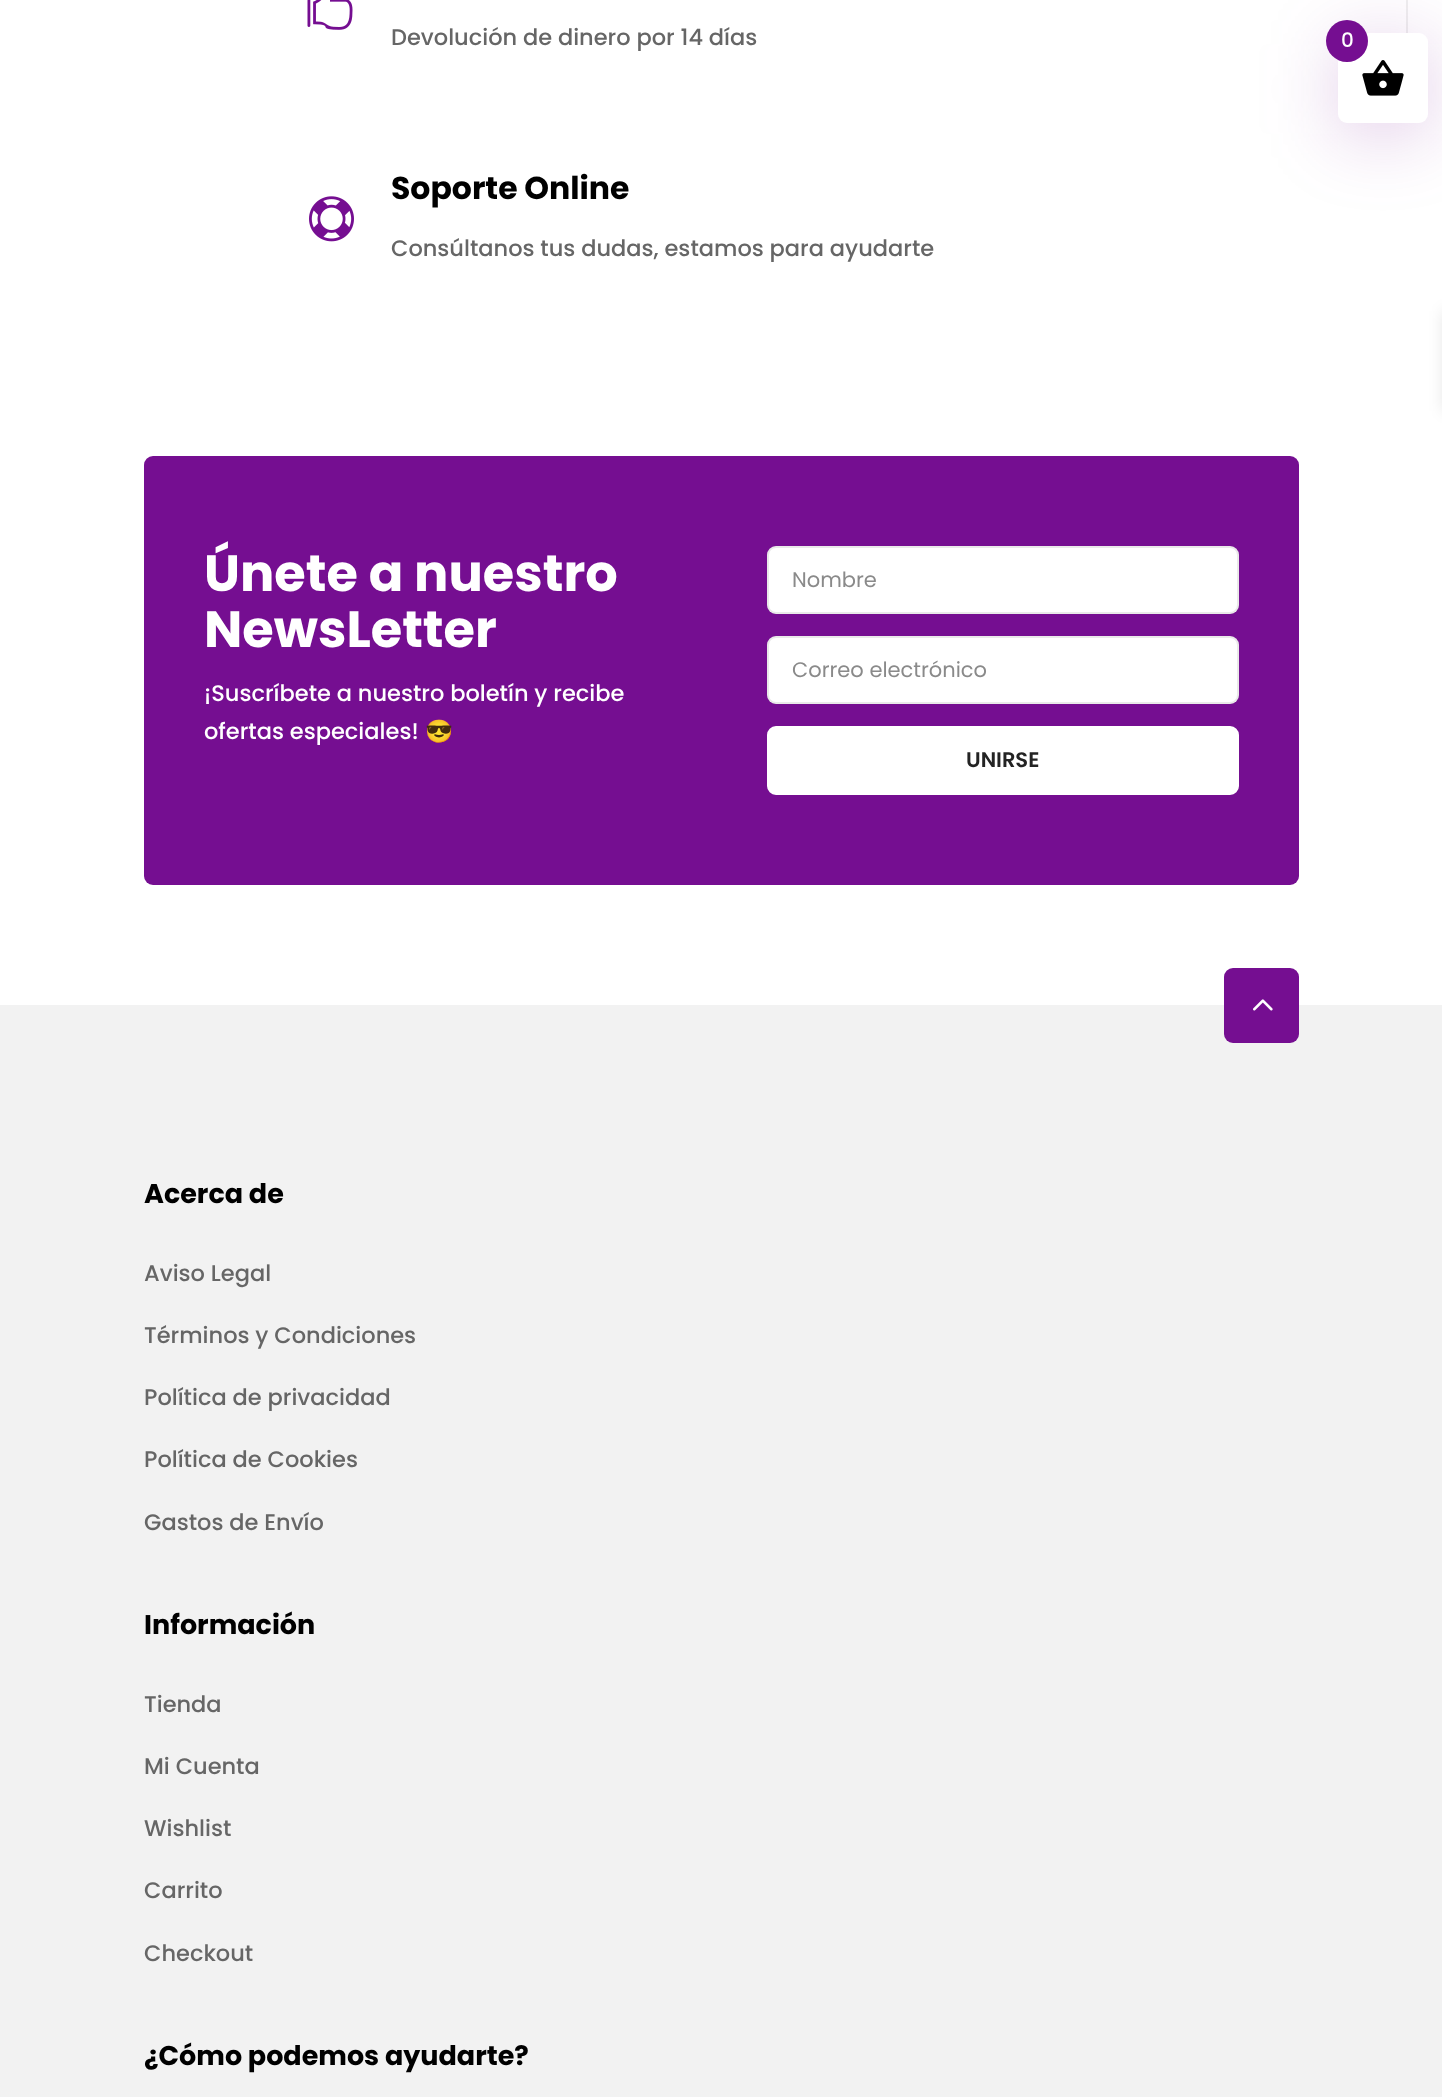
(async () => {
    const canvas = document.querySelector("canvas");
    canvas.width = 1442;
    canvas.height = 2097;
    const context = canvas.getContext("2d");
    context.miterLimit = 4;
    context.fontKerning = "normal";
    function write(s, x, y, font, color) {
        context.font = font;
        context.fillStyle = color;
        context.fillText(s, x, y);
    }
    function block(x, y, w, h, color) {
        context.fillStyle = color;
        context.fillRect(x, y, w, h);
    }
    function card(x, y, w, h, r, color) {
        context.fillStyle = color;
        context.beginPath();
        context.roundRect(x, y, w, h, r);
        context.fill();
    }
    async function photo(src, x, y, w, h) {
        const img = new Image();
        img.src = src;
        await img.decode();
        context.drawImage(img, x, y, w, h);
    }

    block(0, 0, 1442, 2097, "rgb(255, 255, 255)");
    block(1406, 0, 2, 33, "rgb(239, 239, 239)");
    await photo("media/1.png", 307, 0, 46, 30);
    write("Devolución de dinero por 14 días", 391, 45, "500 22.5px Poppins", "rgb(102, 102, 102)");
    await photo("media/2.png", 309, 196, 45, 46);
    write("Soporte Online", 391, 199, "bold 31.5px Poppins", "rgb(0, 0, 0)");
    write("Consúltanos tus dudas, estamos para ayudarte", 391, 256, "500 22.5px Poppins", "rgb(102, 102, 102)");
    card(144, 456, 1155, 429, 9, "rgb(117, 14, 145)");
    write("Únete a nuestro", 204, 591, "bold 51px Poppins", "rgb(255, 255, 255)");
    write("NewsLetter", 204, 647, "bold 51px Poppins", "rgb(255, 255, 255)");
    write("¡Suscríbete a nuestro boletín y recibe", 204, 701, "500 22.5px Poppins", "rgb(255, 255, 255)");
    write("ofertas especiales!", 204, 739, "500 22.5px Poppins", "rgb(255, 255, 255)");
    write("😎", 425, 739, "22.5px Noto Color Emoji", "rgb(255, 255, 255)");
    card(767, 546, 472, 68, 9, "rgb(255, 255, 255)");
    context.beginPath();
    context.roundRect(768, 547, 470, 66, 8);
    context.strokeStyle = "rgba(117, 117, 117, 0.16)";
    context.lineWidth = 2;
    context.stroke();
    write("Nombre", 792, 587, "21px Poppins", "rgb(138, 138, 138)");
    card(767, 636, 472, 68, 9, "rgb(255, 255, 255)");
    context.beginPath();
    context.roundRect(768, 637, 470, 66, 8);
    context.stroke();
    write("Correo electrónico", 792, 677, "21px Poppins", "rgb(138, 138, 138)");
    context.fillStyle = "rgb(255, 255, 255)";
    context.beginPath();
    context.roundRect(768.5, 727.5, 469, 66, 7.5);
    context.fill();
    context.strokeStyle = "rgb(255, 255, 255)";
    context.lineWidth = 3;
    context.stroke();
    write("UNIRSE", 966, 767, "600 21px Poppins", "rgb(35, 35, 35)");
    block(0, 1005, 1442, 1092, "rgb(242, 242, 242)");
    card(1224, 968, 75, 75, 9, "rgb(117, 14, 145)");
    await photo("media/3.png", 1253, 999, 20, 12);
    write("Acerca de", 144, 1203, "bold 27px Poppins", "rgb(0, 0, 0)");
    write("Aviso Legal", 144, 1281, "500 22.5px Poppins", "rgb(102, 102, 102)");
    write("Términos y Condiciones", 144, 1343, "500 22.5px Poppins", "rgb(102, 102, 102)");
    write("Política de privacidad", 144, 1405, "500 22.5px Poppins", "rgb(102, 102, 102)");
    write("Política de Cookies", 144, 1467, "500 22.5px Poppins", "rgb(102, 102, 102)");
    write("Gastos de Envío", 144, 1530, "500 22.5px Poppins", "rgb(102, 102, 102)");
    write("Información", 144, 1634, "bold 27px Poppins", "rgb(0, 0, 0)");
    write("Tienda", 144, 1712, "500 22.5px Poppins", "rgb(102, 102, 102)");
    write("Mi Cuenta", 144, 1774, "500 22.5px Poppins", "rgb(102, 102, 102)");
    write("Wishlist", 144, 1836, "500 22.5px Poppins", "rgb(102, 102, 102)");
    write("Carrito", 144, 1898, "500 22.5px Poppins", "rgb(102, 102, 102)");
    write("Checkout", 144, 1961, "500 22.5px Poppins", "rgb(102, 102, 102)");
    write("¿Cómo podemos ayudarte?", 144, 2065, "bold 27px Poppins", "rgb(0, 0, 0)");
    context.fillStyle = "rgba(117, 14, 145, 0.22)";
    context.filter = "blur(37.5px)";
    context.beginPath();
    context.roundRect(1338, 44, 90, 90, 9);
    context.fill();
    context.filter = "none";
    card(1338, 33, 90, 90, 9, "rgb(255, 255, 255)");
    await photo("media/4.png", 1362, 60, 42, 36);
    context.fillStyle = "rgb(117, 14, 145)";
    context.beginPath();
    context.arc(1347, 41, 21, 0, Math.PI * 2);
    context.fill();
    write("0", 1341, 47, "500 20px Poppins", "rgb(255, 255, 255)");
    context.fillStyle = "rgba(0, 0, 0, 0.1)";
    context.filter = "blur(7.5px)";
    context.beginPath();
    context.rect(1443, 311, 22, 100);
    context.fill();
    context.filter = "none";
})();
